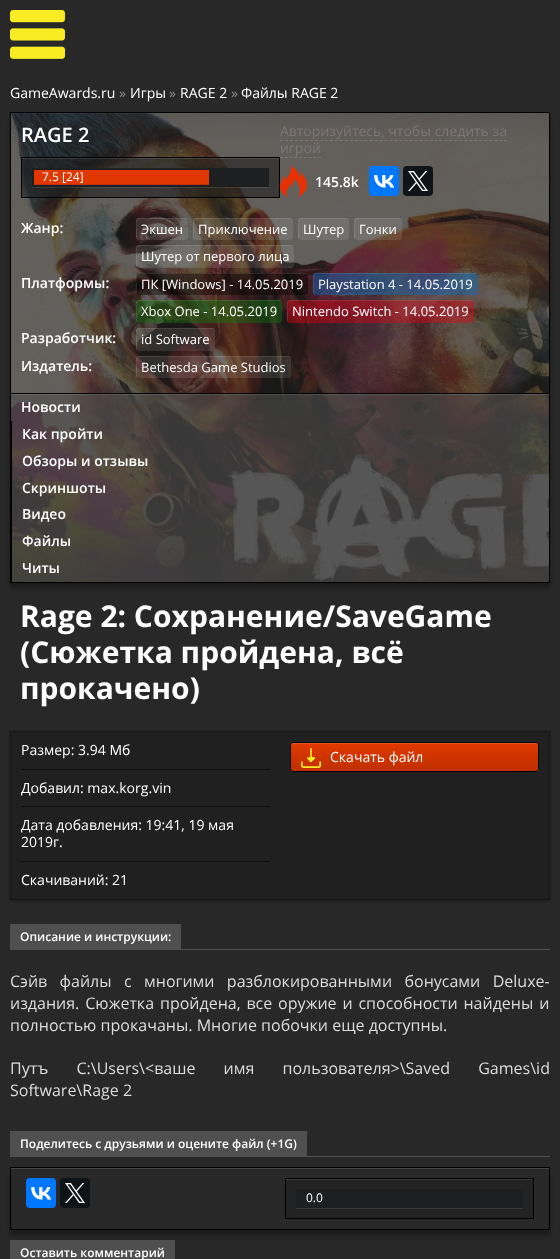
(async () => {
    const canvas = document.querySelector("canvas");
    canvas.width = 560;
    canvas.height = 1259;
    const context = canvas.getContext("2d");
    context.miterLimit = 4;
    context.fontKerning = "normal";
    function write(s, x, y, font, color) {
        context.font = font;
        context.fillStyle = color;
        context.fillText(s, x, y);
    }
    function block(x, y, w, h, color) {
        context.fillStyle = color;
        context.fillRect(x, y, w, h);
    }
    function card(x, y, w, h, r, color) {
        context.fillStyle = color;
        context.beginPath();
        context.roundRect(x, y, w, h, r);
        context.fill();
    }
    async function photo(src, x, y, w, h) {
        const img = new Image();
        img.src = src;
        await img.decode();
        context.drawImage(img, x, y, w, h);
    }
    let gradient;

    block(0, 0, 560, 1259, "rgb(40, 40, 40)");
    await photo("media/1.png", 10, 10, 55, 49);
    write("GameAwards.ru", 10, 98, "14px Open Sans", "rgb(255, 255, 255)");
    write("»", 119, 98, "14px Open Sans", "rgb(139, 139, 139)");
    write("Игры", 130, 98, "14px Open Sans", "rgb(255, 255, 255)");
    write("»", 169, 98, "14px Open Sans", "rgb(139, 139, 139)");
    write("RAGE 2", 180, 98, "14px Open Sans", "rgb(255, 255, 255)");
    write("»", 231, 98, "14px Open Sans", "rgb(139, 139, 139)");
    write("Файлы RAGE 2", 241, 98, "14px Open Sans", "rgb(255, 255, 255)");
    context.fillStyle = "rgba(0, 0, 0, 0.35)";
    context.filter = "blur(2.5px)";
    context.beginPath();
    context.rect(10, 117, 540, 471);
    context.fill();
    context.filter = "none";
    await photo("media/2.png", 11, 113, 538, 469);
    block(11, 113, 538, 1, "rgba(99, 99, 99, 0.15)");
    context.strokeStyle = "rgb(0, 0, 0)";
    context.strokeRect(10.5, 112.5, 539, 470);
    write("RAGE 2", 21, 142, "600 20px Open Sans", "rgb(255, 255, 255)");
    block(22, 158, 257, 39, "rgba(32, 32, 32, 0.6)");
    block(22, 158, 257, 1, "rgba(255, 255, 255, 0.1)");
    context.strokeRect(21.5, 157.5, 258, 40);
    block(32, 187, 237, 1, "rgba(255, 255, 255, 0.1)");
    block(32, 168, 237, 19, "rgb(29, 31, 32)");
    block(34, 170, 175, 14, "rgb(224, 56, 0)");
    block(34, 184, 175, 1, "rgb(190, 48, 0)");
    write("7.5 [24]", 42, 181, "12px Open Sans", "rgb(255, 255, 255)");
    write("Авторизуйтесь, чтобы следить за", 280, 136, "14px Open Sans", "rgb(124, 118, 118)");
    context.beginPath();
    context.moveTo(280, 140.5);
    context.lineTo(507, 140.5);
    context.strokeStyle = "rgb(124, 118, 118)";
    context.setLineDash([3, 1.98]);
    context.stroke();
    write("игрой", 280, 153, "14px Open Sans", "rgb(124, 118, 118)");
    context.beginPath();
    context.moveTo(280, 157.5);
    context.lineTo(321, 157.5);
    context.setLineDash([3, 1.75]);
    context.stroke();
    await photo("media/3.png", 280, 166, 27, 31);
    write("145.8k", 315, 187, "600 14px Open Sans", "rgb(255, 255, 255)");
    card(369, 166, 30, 30, 4, "rgb(0, 119, 255)");
    await photo("media/4.png", 374, 175, 20, 13);
    card(403, 166, 30, 30, 4, "rgb(15, 20, 25)");
    await photo("media/5.png", 408, 171, 20, 20);
    write("Жанр:", 21, 233, "600 14px Open Sans", "rgb(255, 255, 255)");
    card(136, 218, 52, 22, 3, "rgba(255, 255, 255, 0.1)");
    context.beginPath();
    context.moveTo(140, 219);
    context.lineTo(187, 219);
    context.bezierCurveTo(187, 218, 186, 218, 185, 218);
    context.lineTo(139, 218);
    context.bezierCurveTo(137, 218, 136, 219, 136, 221);
    context.lineTo(136, 237);
    context.bezierCurveTo(136, 238, 136, 239, 137, 239);
    context.lineTo(137, 230);
    context.bezierCurveTo(137, 227, 135, 219, 140, 219);
    context.closePath();
    context.fill();
    write("Экшен", 141, 234, "13px Open Sans", "rgb(255, 255, 255)");
    card(193, 218, 100, 22, 3, "rgba(255, 255, 255, 0.1)");
    context.beginPath();
    context.moveTo(197, 219);
    context.lineTo(292, 219);
    context.lineTo(290, 218);
    context.lineTo(212, 218);
    context.bezierCurveTo(193, 218, 193, 214, 193, 229);
    context.bezierCurveTo(193, 231, 192, 238, 194, 239);
    context.lineTo(194, 230);
    context.bezierCurveTo(194, 227, 192, 219, 197, 219);
    context.closePath();
    context.fill();
    write("Приключение", 198, 234, "13px Open Sans", "rgb(255, 255, 255)");
    card(298, 218, 51, 22, 3, "rgb(114, 111, 108)");
    context.fillStyle = "rgba(255, 255, 255, 0.1)";
    context.beginPath();
    context.moveTo(302, 219);
    context.lineTo(348, 219);
    context.bezierCurveTo(348, 218, 347, 218, 346, 218);
    context.lineTo(301, 218);
    context.bezierCurveTo(299, 218, 298, 219, 298, 221);
    context.lineTo(298, 237);
    context.bezierCurveTo(298, 238, 298, 239, 299, 239);
    context.lineTo(299, 230);
    context.bezierCurveTo(299, 227, 297, 219, 302, 219);
    context.closePath();
    context.fill();
    write("Шутер", 303, 234, "13px Open Sans", "rgb(255, 255, 255)");
    card(354, 218, 48, 22, 3, "rgba(255, 255, 255, 0.1)");
    context.beginPath();
    context.moveTo(358, 219);
    context.lineTo(401, 219);
    context.bezierCurveTo(401, 218, 400, 218, 399, 218);
    context.lineTo(357, 218);
    context.bezierCurveTo(355, 218, 354, 219, 354, 221);
    context.lineTo(354, 237);
    context.bezierCurveTo(354, 238, 354, 239, 355, 239);
    context.lineTo(355, 230);
    context.bezierCurveTo(355, 227, 353, 219, 358, 219);
    context.closePath();
    context.fill();
    write("Гонки", 359, 234, "13px Open Sans", "rgb(255, 255, 255)");
    card(136, 245, 158, 23, 3, "rgba(255, 255, 255, 0.1)");
    context.beginPath();
    context.moveTo(140, 246);
    context.lineTo(293, 246);
    context.lineTo(291, 245);
    context.lineTo(138, 245);
    context.bezierCurveTo(134, 246, 136, 254, 136, 256);
    context.bezierCurveTo(136, 259, 135, 266, 137, 267);
    context.lineTo(137, 258);
    context.bezierCurveTo(137, 254, 135, 246, 140, 246);
    context.closePath();
    context.fill();
    write("Шутер от первого лица", 141, 261, "13px Open Sans", "rgb(255, 255, 255)");
    write("Платформы:", 21, 288, "600 14px Open Sans", "rgb(255, 255, 255)");
    card(136, 273, 172, 22, 3, "rgba(0, 0, 0, 0.4)");
    context.fillStyle = "rgba(255, 255, 255, 0.1)";
    context.beginPath();
    context.moveTo(140, 274);
    context.lineTo(307, 274);
    context.lineTo(305, 273);
    context.lineTo(138, 273);
    context.bezierCurveTo(134, 274, 136, 281, 136, 284);
    context.bezierCurveTo(136, 286, 135, 293, 137, 294);
    context.lineTo(137, 285);
    context.bezierCurveTo(137, 282, 135, 274, 140, 274);
    context.closePath();
    context.fill();
    write("ПК [Windows] - 14.05.2019", 141, 289, "13px Open Sans", "rgb(255, 255, 255)");
    card(313, 273, 165, 22, 3, "rgba(0, 114, 206, 0.4)");
    context.fillStyle = "rgba(255, 255, 255, 0.1)";
    context.beginPath();
    context.moveTo(317, 274);
    context.lineTo(477, 274);
    context.lineTo(475, 273);
    context.lineTo(316, 273);
    context.bezierCurveTo(311, 273, 313, 281, 313, 284);
    context.bezierCurveTo(313, 286, 312, 293, 314, 294);
    context.lineTo(314, 285);
    context.bezierCurveTo(314, 282, 312, 274, 317, 274);
    context.closePath();
    context.fill();
    write("Playstation 4 - 14.05.2019", 318, 289, "13px Open Sans", "rgb(255, 255, 255)");
    card(136, 300, 146, 23, 3, "rgba(16, 124, 16, 0.4)");
    context.fillStyle = "rgba(255, 255, 255, 0.1)";
    context.beginPath();
    context.moveTo(140, 301);
    context.lineTo(281, 301);
    context.lineTo(280, 300);
    context.lineTo(139, 300);
    context.bezierCurveTo(134, 300, 136, 309, 136, 312);
    context.bezierCurveTo(136, 314, 135, 321, 137, 322);
    context.lineTo(137, 312);
    context.bezierCurveTo(137, 309, 135, 301, 140, 301);
    context.closePath();
    context.fill();
    write("Xbox One - 14.05.2019", 141, 316, "13px Open Sans", "rgb(255, 255, 255)");
    card(287, 300, 187, 23, 3, "rgba(230, 0, 18, 0.4)");
    context.fillStyle = "rgba(255, 255, 255, 0.1)";
    context.beginPath();
    context.moveTo(291, 301);
    context.lineTo(473, 301);
    context.lineTo(471, 300);
    context.lineTo(289, 300);
    context.bezierCurveTo(285, 301, 287, 309, 287, 312);
    context.bezierCurveTo(287, 314, 286, 321, 288, 322);
    context.lineTo(288, 312);
    context.bezierCurveTo(288, 309, 286, 301, 291, 301);
    context.closePath();
    context.fill();
    write("Nintendo Switch - 14.05.2019", 292, 316, "13px Open Sans", "rgb(255, 255, 255)");
    write("Разработчик:", 21, 343, "600 14px Open Sans", "rgb(255, 255, 255)");
    card(136, 328, 79, 23, 3, "rgba(255, 255, 255, 0.1)");
    context.beginPath();
    context.moveTo(140, 329);
    context.lineTo(214, 329);
    context.bezierCurveTo(214, 328, 213, 328, 212, 328);
    context.lineTo(139, 328);
    context.bezierCurveTo(137, 328, 136, 329, 136, 331);
    context.lineTo(136, 348);
    context.bezierCurveTo(136, 349, 136, 350, 137, 350);
    context.lineTo(137, 340);
    context.bezierCurveTo(137, 337, 135, 329, 140, 329);
    context.closePath();
    context.fill();
    write("id Software", 141, 344, "13px Open Sans", "rgb(255, 255, 255)");
    write("Издатель:", 21, 371, "600 14px Open Sans", "rgb(255, 255, 255)");
    card(136, 356, 155, 22, 3, "rgba(255, 255, 255, 0.1)");
    context.beginPath();
    context.moveTo(140, 357);
    context.lineTo(290, 357);
    context.lineTo(289, 356);
    context.lineTo(138, 356);
    context.bezierCurveTo(135, 358, 136, 364, 136, 367);
    context.bezierCurveTo(136, 369, 135, 376, 137, 377);
    context.lineTo(137, 368);
    context.bezierCurveTo(137, 365, 135, 357, 140, 357);
    context.closePath();
    context.fill();
    write("Bethesda Game Studios", 141, 372, "13px Open Sans", "rgb(255, 255, 255)");
    block(11, 394, 538, 188, "rgba(79, 79, 79, 0.6)");
    block(11, 394, 538, 1, "rgba(255, 255, 255, 0.1)");
    block(11, 393, 538, 1, "rgb(0, 0, 0)");
    write("Новости", 21, 412, "600 14px Open Sans", "rgb(255, 255, 255)");
    block(11, 421, 1, 161, "rgb(0, 0, 0)");
    write("Как пройти", 22, 439, "600 14px Open Sans", "rgb(255, 255, 255)");
    write("Обзоры и отзывы", 22, 466, "600 14px Open Sans", "rgb(255, 255, 255)");
    write("Скриншоты", 22, 493, "600 14px Open Sans", "rgb(255, 255, 255)");
    write("Видео", 22, 519, "600 14px Open Sans", "rgb(255, 255, 255)");
    write("Файлы", 22, 546, "600 14px Open Sans", "rgb(255, 255, 255)");
    write("Читы", 22, 573, "600 14px Open Sans", "rgb(255, 255, 255)");
    write("Rage 2: Сохранение/SaveGame", 20, 627, "bold 30px Open Sans", "rgb(255, 255, 255)");
    write("(Сюжетка пройдена, всё", 20, 663, "bold 30px Open Sans", "rgb(255, 255, 255)");
    write("прокачено)", 20, 699, "bold 30px Open Sans", "rgb(255, 255, 255)");
    context.fillStyle = "rgba(0, 0, 0, 0.35)";
    context.filter = "blur(1.5px)";
    context.beginPath();
    context.rect(10, 732, 540, 169);
    context.fill();
    context.filter = "none";
    block(11, 733, 538, 166, "rgb(32, 32, 32)");
    context.strokeStyle = "rgb(22, 23, 24)";
    context.setLineDash([]);
    context.strokeRect(10.5, 731.5, 539, 168);
    block(21, 769, 249, 1, "rgb(15, 15, 15)");
    write("Размер: 3.94 Мб", 21, 755, "14px Open Sans", "rgb(255, 255, 255)");
    block(21, 806, 249, 1, "rgb(15, 15, 15)");
    write("Добавил: max.korg.vin", 21, 793, "14px Open Sans", "rgb(255, 255, 255)");
    block(21, 861, 249, 1, "rgb(15, 15, 15)");
    write("Дата добавления: 19:41, 19 мая", 21, 830, "14px Open Sans", "rgb(255, 255, 255)");
    write("2019г.", 21, 847, "14px Open Sans", "rgb(255, 255, 255)");
    write("Скачиваний: 21", 21, 885, "14px Open Sans", "rgb(255, 255, 255)");
    card(290, 742, 249, 30, 3, "rgb(224, 56, 0)");
    gradient = context.createLinearGradient(415, 743, 415, 771);
    gradient.addColorStop(0, "rgba(0, 0, 0, 0)");
    gradient.addColorStop(1, "rgba(0, 0, 0, 0.15)");
    context.fillStyle = gradient;
    context.fillRect(290, 747, 249, 24);
    context.fillStyle = "rgb(228, 86, 38)";
    context.beginPath();
    context.moveTo(293, 744);
    context.lineTo(536, 744);
    context.bezierCurveTo(537, 744, 538, 745, 538, 746);
    context.bezierCurveTo(538, 745, 538, 743, 536, 743);
    context.lineTo(293, 743);
    context.lineTo(291, 744);
    context.lineTo(291, 746);
    context.bezierCurveTo(291, 745, 292, 744, 293, 744);
    context.closePath();
    context.fill();
    context.beginPath();
    context.roundRect(290.5, 742.5, 248, 29, 2.5);
    context.strokeStyle = "rgb(0, 0, 0)";
    context.stroke();
    await photo("media/6.png", 301, 748, 20, 20);
    write("Скачать файл", 330, 762, "14px Open Sans", "rgb(255, 255, 255)");
    block(10, 949, 540, 1, "rgb(79, 79, 79)");
    block(10, 924, 171, 25, "rgb(79, 79, 79)");
    write("Описание и инструкции:", 20, 941, "600 12px Open Sans", "rgb(255, 255, 255)");
    context.wordSpacing = "8.25px";
    write("Cэйв файлы с многими разблокированными бонусами Deluxe-", 10, 987, "16px Open Sans", "rgb(221, 221, 221)");
    context.wordSpacing = "1.75px";
    write("издания. Сюжетка пройдена, все оружие и способности найдены и", 10, 1009, "16px Open Sans", "rgb(221, 221, 221)");
    context.wordSpacing = "0px";
    write("полностью прокачаны. Многие побочки еще доступны.", 10, 1031, "16px Open Sans", "rgb(221, 221, 221)");
    context.wordSpacing = "24px";
    write("Путъ C:\\Users\\<ваше имя пользователя>\\Saved Games\\id", 10, 1074, "16px Open Sans", "rgb(221, 221, 221)");
    context.wordSpacing = "0px";
    write("Software\\Rage 2", 10, 1096, "16px Open Sans", "rgb(221, 221, 221)");
    block(10, 1156, 540, 1, "rgb(79, 79, 79)");
    block(10, 1131, 297, 25, "rgb(79, 79, 79)");
    write("Поделитесь с друзьями и оцените файл (+1G)", 20, 1148, "600 12px Open Sans", "rgb(255, 255, 255)");
    context.save();
    context.beginPath();
    context.moveTo(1, 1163);
    context.lineTo(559, 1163);
    context.lineTo(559, 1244);
    context.lineTo(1, 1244);
    context.closePath();
    context.moveTo(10, 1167);
    context.lineTo(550, 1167);
    context.lineTo(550, 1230);
    context.lineTo(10, 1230);
    context.closePath();
    context.clip("evenodd");
    context.fillStyle = "rgba(0, 0, 0, 0.35)";
    context.filter = "blur(2.5px)";
    context.beginPath();
    context.rect(10, 1172, 540, 63);
    context.fill();
    context.filter = "none";
    context.restore();
    block(11, 1168, 538, 1, "rgb(72, 72, 72)");
    context.strokeRect(10.5, 1167.5, 539, 62);
    card(26, 1178, 30, 30, 4, "rgb(0, 119, 255)");
    await photo("media/4.png", 31, 1187, 20, 13);
    card(60, 1178, 30, 30, 4, "rgb(15, 20, 25)");
    await photo("media/5.png", 65, 1183, 20, 20);
    block(286, 1180, 247, 38, "rgb(35, 35, 35)");
    block(286, 1179, 247, 1, "rgb(57, 57, 57)");
    context.strokeRect(285.5, 1178.5, 248, 40);
    block(296, 1208, 227, 1, "rgb(57, 57, 57)");
    block(296, 1189, 227, 19, "rgb(29, 31, 32)");
    write("0.0", 306, 1202, "12px Open Sans", "rgb(255, 255, 255)");
    block(10, 1240, 165, 19, "rgb(79, 79, 79)");
    write("Оставить комментарий", 20, 1257, "600 12px Open Sans", "rgb(255, 255, 255)");
})();
